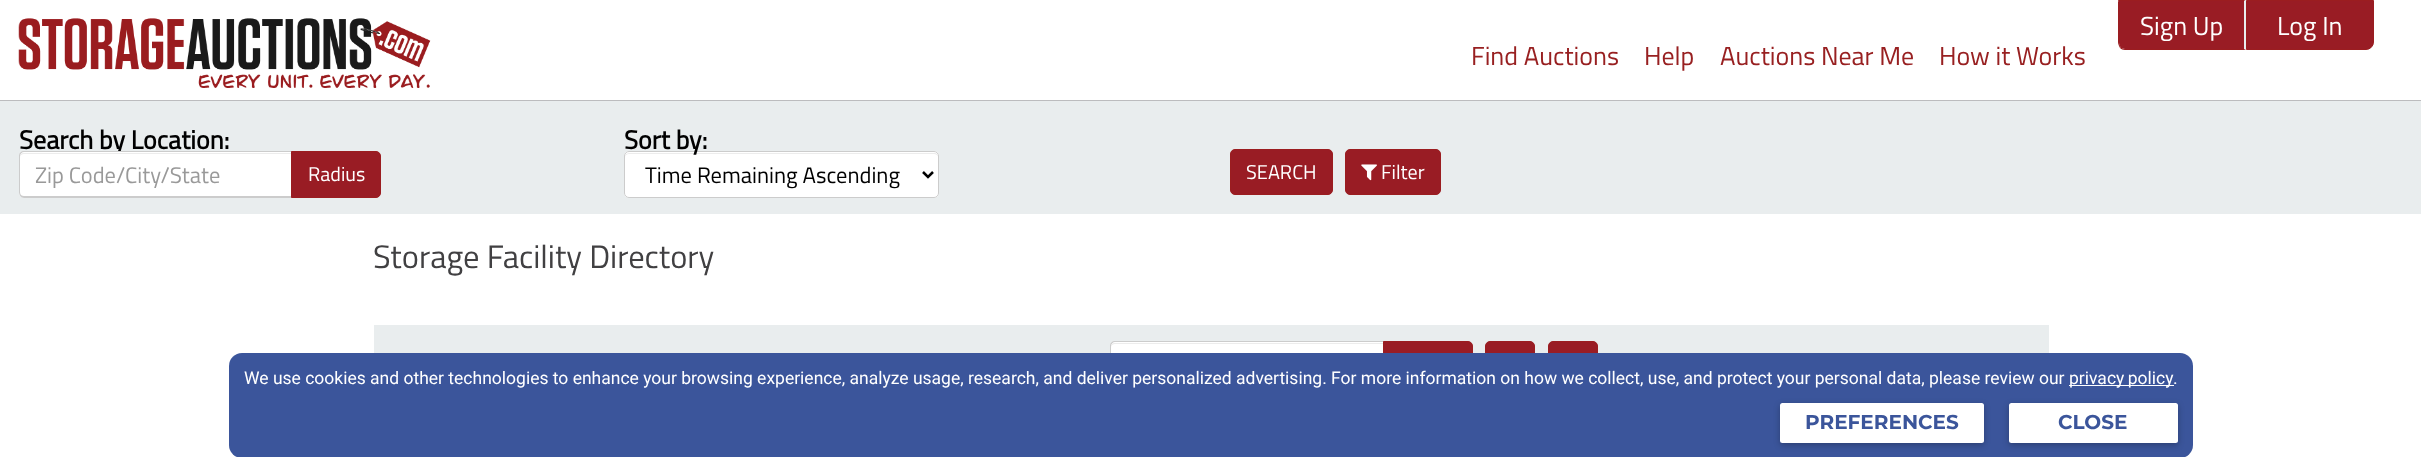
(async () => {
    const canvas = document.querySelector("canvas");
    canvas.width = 2421;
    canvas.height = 457;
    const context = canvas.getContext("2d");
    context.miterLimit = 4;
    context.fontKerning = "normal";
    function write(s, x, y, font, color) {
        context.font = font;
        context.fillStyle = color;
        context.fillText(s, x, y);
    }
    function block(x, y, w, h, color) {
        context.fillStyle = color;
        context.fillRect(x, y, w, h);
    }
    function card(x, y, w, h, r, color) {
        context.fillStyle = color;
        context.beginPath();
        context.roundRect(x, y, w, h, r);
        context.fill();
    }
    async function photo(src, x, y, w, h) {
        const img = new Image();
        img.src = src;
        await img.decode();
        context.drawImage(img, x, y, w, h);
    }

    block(0, 0, 2421, 457, "rgb(255, 255, 255)");
    block(0, 100, 2421, 1, "rgb(188, 188, 190)");
    await photo("media/1.png", 18, 18, 413, 70);
    context.fillStyle = "rgb(153, 28, 36)";
    context.beginPath();
    context.roundRect(2119, 1, 125, 48, [0, 0, 0, 6]);
    context.fill();
    context.fillStyle = "rgb(155, 29, 32)";
    context.beginPath();
    context.moveTo(2118, 0);
    context.lineTo(2119, 2);
    context.lineTo(2119, 1);
    context.lineTo(2244, 1);
    context.lineTo(2246, 0);
    context.closePath();
    context.fill();
    context.fillStyle = "rgb(233, 237, 238)";
    context.beginPath();
    context.moveTo(2246, 0);
    context.lineTo(2246, 50);
    context.lineTo(2244, 49);
    context.lineTo(2244, 1);
    context.closePath();
    context.fill();
    context.fillStyle = "rgb(155, 29, 32)";
    context.beginPath();
    context.moveTo(2125, 50);
    context.lineTo(2246, 50);
    context.lineTo(2244, 49);
    context.lineTo(2125, 49);
    context.bezierCurveTo(2123, 49, 2122, 48, 2121, 47);
    context.lineTo(2120, 48);
    context.bezierCurveTo(2121, 49, 2123, 50, 2125, 50);
    context.closePath();
    context.fill();
    context.beginPath();
    context.moveTo(2118, 0);
    context.lineTo(2118, 42);
    context.bezierCurveTo(2118, 44, 2119, 46, 2120, 48);
    context.lineTo(2121, 47);
    context.bezierCurveTo(2120, 46, 2119, 44, 2119, 42);
    context.lineTo(2119, 2);
    context.closePath();
    context.fill();
    write("Sign Up", 2140, 35, "26px Titillium Web", "rgb(255, 255, 255)");
    context.fillStyle = "rgb(153, 28, 36)";
    context.beginPath();
    context.roundRect(2246.5, 0.5, 127, 49, [0, 0, 7.5, 0]);
    context.fill();
    context.strokeStyle = "rgb(155, 29, 32)";
    context.stroke();
    write("Log In", 2277, 35, "26px Titillium Web", "rgb(255, 255, 255)");
    write("Find Auctions", 1471, 65, "26px Titillium Web", "rgb(152, 32, 33)");
    write("Help", 1644, 65, "26px Titillium Web", "rgb(152, 32, 33)");
    write("Auctions Near Me", 1720, 65, "26px Titillium Web", "rgb(152, 32, 33)");
    write("How it Works", 1939, 65, "26px Titillium Web", "rgb(152, 32, 33)");
    block(0, 101, 2421, 113, "rgb(233, 237, 238)");
    write("Search by Location:", 19, 149, "bold 26px Titillium Web", "rgb(0, 0, 0)");
    context.fillStyle = "rgb(255, 255, 255)";
    context.beginPath();
    context.roundRect(19, 151, 274, 47, [5, 0, 0, 5]);
    context.fill();
    context.fillStyle = "rgb(236, 236, 236)";
    context.beginPath();
    context.moveTo(24, 154);
    context.lineTo(292, 154);
    context.lineTo(292, 196);
    context.lineTo(293, 196);
    context.lineTo(293, 153);
    context.lineTo(24, 153);
    context.bezierCurveTo(21, 153, 20, 155, 20, 158);
    context.bezierCurveTo(20, 155, 22, 154, 24, 154);
    context.closePath();
    context.fill();
    context.fillStyle = "rgb(204, 204, 204)";
    context.beginPath();
    context.moveTo(24, 151);
    context.lineTo(292, 151);
    context.lineTo(292, 198);
    context.lineTo(24, 198);
    context.bezierCurveTo(21, 198, 19, 195, 19, 192);
    context.lineTo(19, 156);
    context.bezierCurveTo(19, 153, 21, 151, 24, 151);
    context.closePath();
    context.moveTo(24, 152);
    context.lineTo(292, 152);
    context.lineTo(292, 196);
    context.lineTo(24, 196);
    context.bezierCurveTo(22, 196, 20, 195, 20, 192);
    context.lineTo(20, 156);
    context.bezierCurveTo(20, 154, 22, 152, 24, 152);
    context.closePath();
    context.fill("evenodd");
    write("Zip Code/City/State", 35, 183, "22.5px Titillium Web", "rgb(153, 153, 153)");
    context.fillStyle = "rgb(153, 28, 36)";
    context.beginPath();
    context.roundRect(291.5, 151.5, 89, 46, [0, 4.5, 4.5, 0]);
    context.fill();
    context.stroke();
    write("Radius", 308, 181, "20px Titillium Web", "rgb(255, 255, 255)");
    card(624, 151, 315, 47, 5, "rgb(255, 255, 255)");
    context.fillStyle = "rgb(236, 236, 236)";
    context.beginPath();
    context.moveTo(629, 154);
    context.lineTo(934, 154);
    context.bezierCurveTo(936, 154, 938, 155, 938, 158);
    context.bezierCurveTo(938, 155, 937, 153, 934, 153);
    context.lineTo(629, 153);
    context.lineTo(626, 154);
    context.bezierCurveTo(625, 155, 625, 157, 625, 158);
    context.bezierCurveTo(625, 155, 627, 154, 629, 154);
    context.closePath();
    context.fill();
    context.beginPath();
    context.roundRect(624.5, 151.5, 314, 46, 4.5);
    context.strokeStyle = "rgb(204, 204, 204)";
    context.stroke();
    write("Sort by:", 624, 149, "bold 26px Titillium Web", "rgb(0, 0, 0)");
    context.beginPath();
    context.moveTo(923, 172);
    context.lineTo(928, 177);
    context.lineTo(933, 172);
    context.strokeStyle = "rgb(0, 0, 0)";
    context.lineWidth = 2.5;
    context.stroke();
    write("Time Remaining Ascending", 645, 183, "22.5px Titillium Web", "rgb(0, 0, 0)");
    context.fillStyle = "rgb(153, 28, 36)";
    context.beginPath();
    context.roundRect(1230.5, 149.5, 102, 45, 4.5);
    context.fill();
    context.strokeStyle = "rgb(155, 29, 32)";
    context.lineWidth = 1;
    context.stroke();
    write("SEARCH", 1246, 179, "20px Titillium Web", "rgb(255, 255, 255)");
    context.fillStyle = "rgb(153, 28, 36)";
    context.beginPath();
    context.roundRect(1345.5, 149.5, 95, 45, 4.5);
    context.fill();
    context.stroke();
    await photo("media/2.png", 1361, 164, 16, 17);
    write("Filter", 1381, 179, "20px Titillium Web", "rgb(255, 255, 255)");
    write("Storage Facility Directory", 373, 268, "32.5px Titillium Web", "rgb(65, 64, 66)");
    block(374, 325, 1675, 28, "rgb(233, 237, 238)");
    context.fillStyle = "rgb(255, 255, 255)";
    context.beginPath();
    context.roundRect(1110, 341, 274, 47, [5, 0, 0, 5]);
    context.fill();
    context.fillStyle = "rgb(236, 236, 236)";
    context.beginPath();
    context.moveTo(1115, 344);
    context.lineTo(1384, 344);
    context.lineTo(1384, 343);
    context.lineTo(1115, 343);
    context.bezierCurveTo(1112, 343, 1111, 345, 1111, 348);
    context.bezierCurveTo(1111, 345, 1113, 344, 1115, 344);
    context.closePath();
    context.fill();
    context.fillStyle = "rgb(204, 204, 204)";
    context.beginPath();
    context.moveTo(1115, 341);
    context.lineTo(1384, 341);
    context.lineTo(1384, 388);
    context.lineTo(1115, 388);
    context.bezierCurveTo(1112, 388, 1110, 385, 1110, 382);
    context.lineTo(1110, 346);
    context.bezierCurveTo(1110, 343, 1112, 341, 1115, 341);
    context.closePath();
    context.moveTo(1115, 342);
    context.lineTo(1384, 342);
    context.lineTo(1384, 386);
    context.lineTo(1115, 386);
    context.bezierCurveTo(1113, 386, 1111, 385, 1111, 382);
    context.lineTo(1111, 346);
    context.bezierCurveTo(1111, 344, 1113, 342, 1115, 342);
    context.closePath();
    context.fill("evenodd");
    context.fillStyle = "rgb(153, 28, 36)";
    context.beginPath();
    context.roundRect(1383.5, 341.5, 89, 46, [0, 4.5, 4.5, 0]);
    context.fill();
    context.stroke();
    context.beginPath();
    context.roundRect(1485.5, 341.5, 49, 46, 4.5);
    context.fill();
    context.stroke();
    context.beginPath();
    context.roundRect(1548.5, 341.5, 49, 46, 4.5);
    context.fill();
    context.stroke();
    card(229, 353, 1964, 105, 13, "rgb(59, 85, 155)");
    write("We use cookies and other technologies to enhance your browsing experience, analyze usage, research, and deliver personalized advertising. For more information on how we collect, use, and protect your personal data, please review our", 244, 384, "17.5px Roboto", "rgb(255, 255, 255)");
    block(2069, 385, 105, 1, "rgb(255, 255, 255)");
    context.wordSpacing = "-1px";
    write("privacy policy", 2069, 384, "17.5px Roboto", "rgb(255, 255, 255)");
    context.wordSpacing = "0px";
    write(".", 2173, 384, "17.5px Roboto", "rgb(255, 255, 255)");
    context.fillStyle = "rgba(0, 0, 0, 0.26)";
    context.filter = "blur(3px)";
    context.beginPath();
    context.roundRect(1780, 405, 204, 40, 2.5);
    context.fill();
    context.filter = "none";
    card(1780, 403, 204, 40, 2.5, "rgb(255, 255, 255)");
    write("PREFERENCES", 1805, 429, "bold 20px Montserrat", "rgb(59, 85, 155)");
    context.fillStyle = "rgba(0, 0, 0, 0.26)";
    context.filter = "blur(3px)";
    context.beginPath();
    context.roundRect(2009, 405, 169, 40, 2.5);
    context.fill();
    context.filter = "none";
    card(2009, 403, 169, 40, 2.5, "rgb(255, 255, 255)");
    write("CLOSE", 2058, 429, "bold 20px Montserrat", "rgb(59, 85, 155)");
})();
